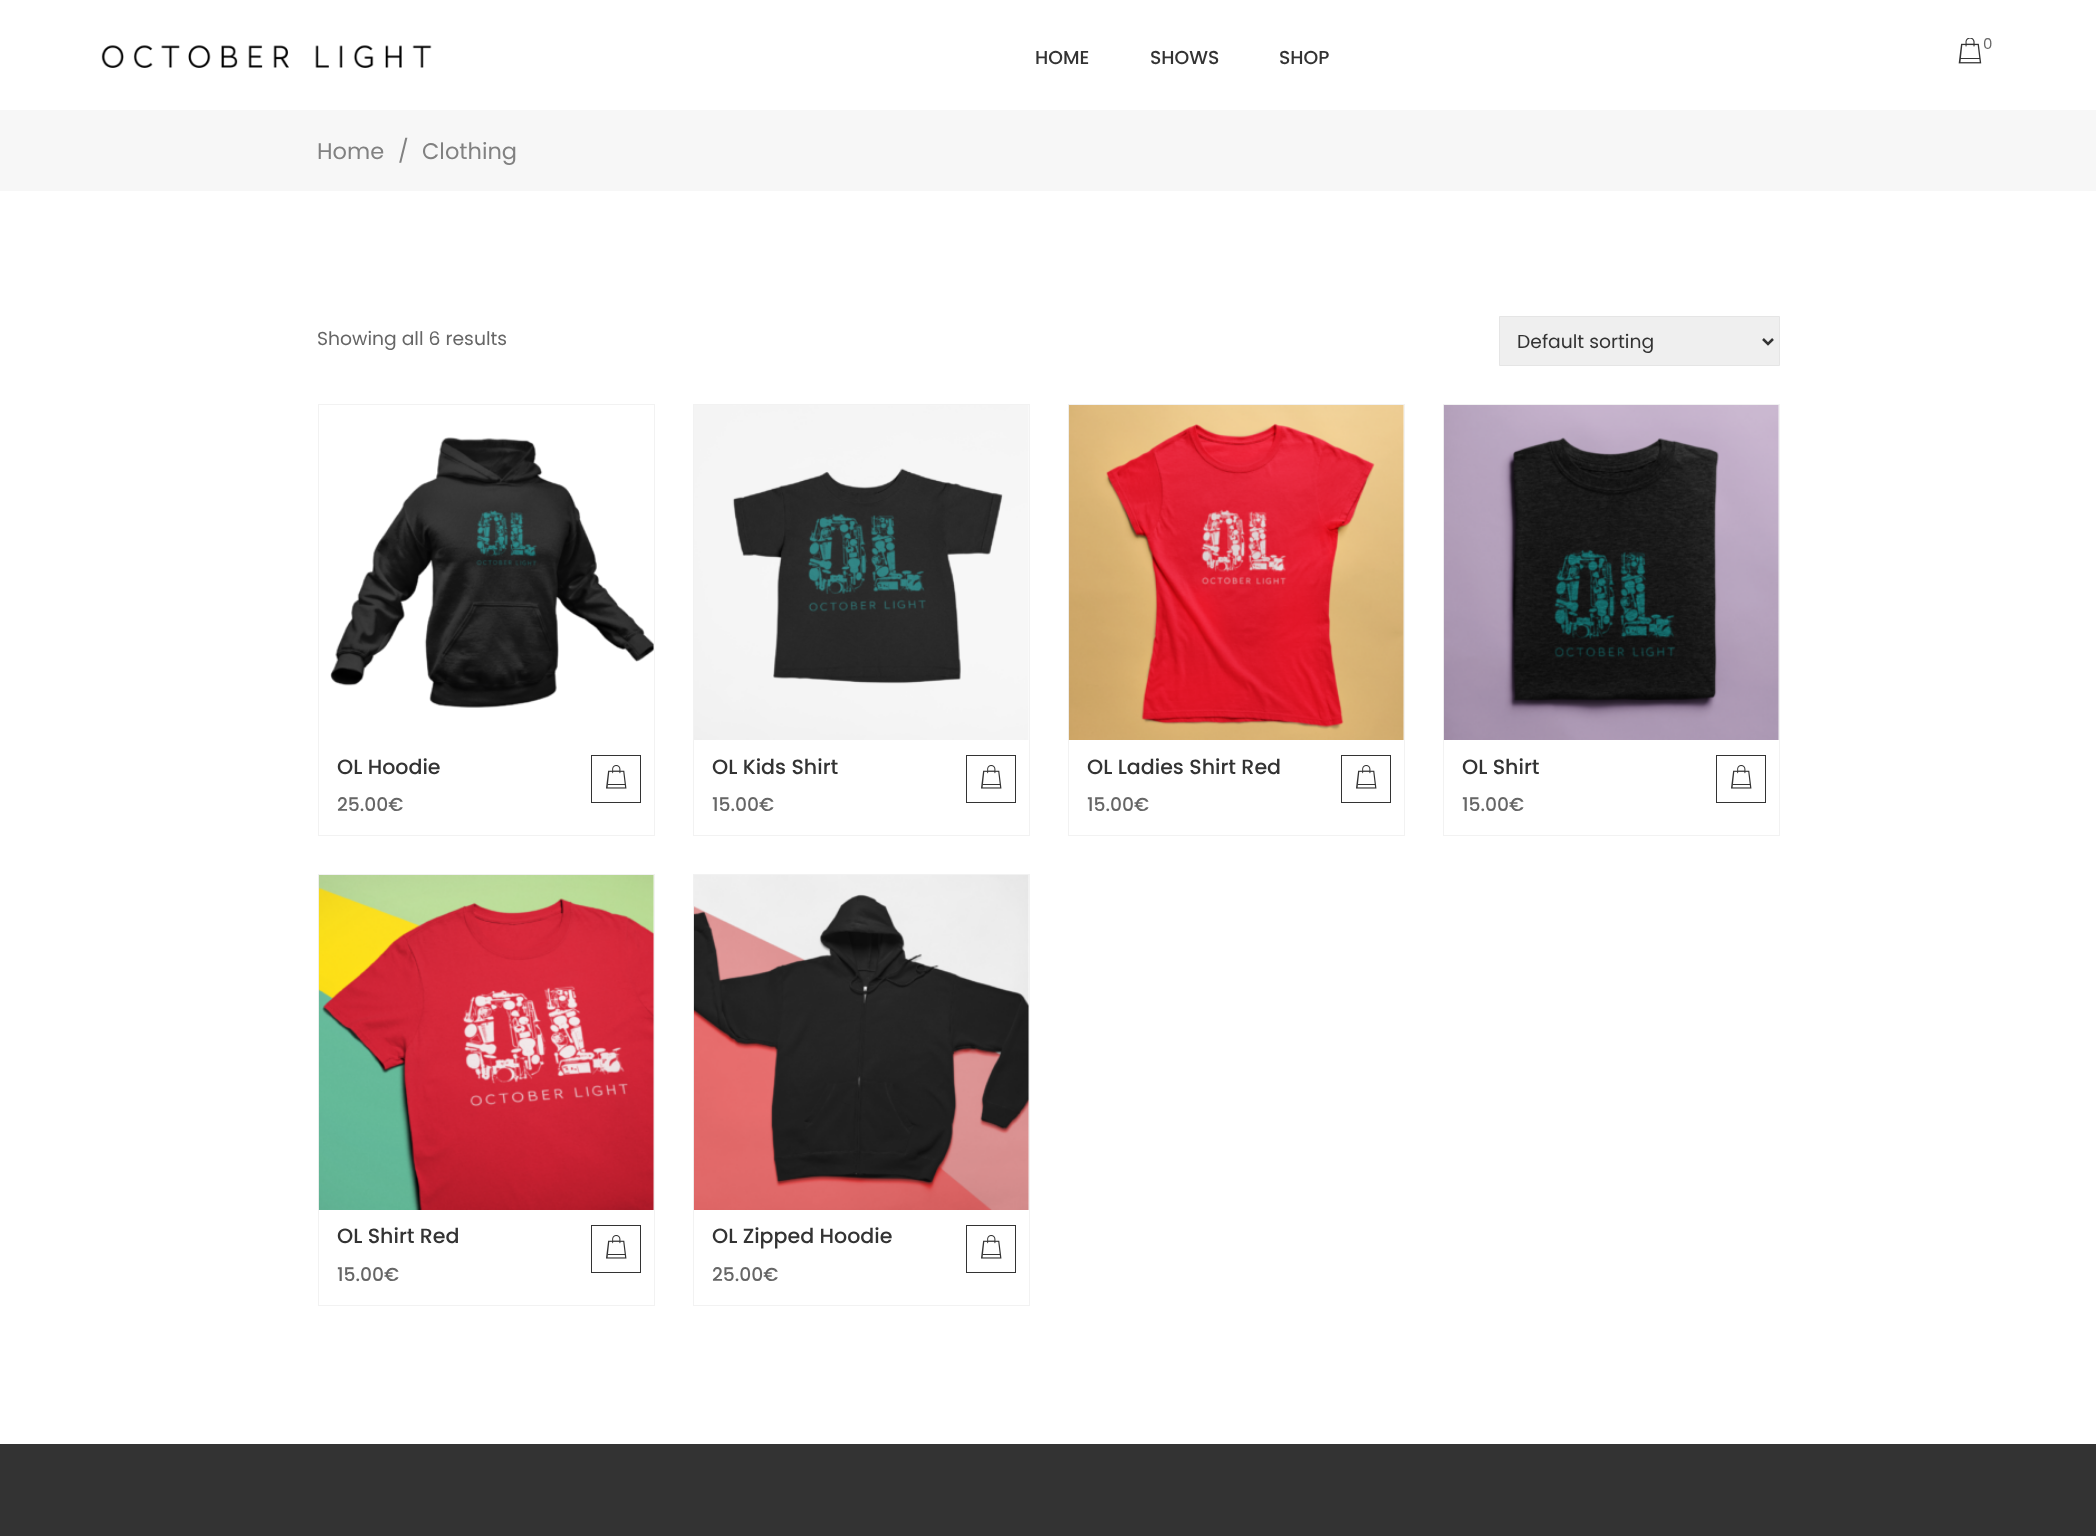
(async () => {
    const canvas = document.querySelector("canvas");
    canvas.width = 2096;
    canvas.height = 1536;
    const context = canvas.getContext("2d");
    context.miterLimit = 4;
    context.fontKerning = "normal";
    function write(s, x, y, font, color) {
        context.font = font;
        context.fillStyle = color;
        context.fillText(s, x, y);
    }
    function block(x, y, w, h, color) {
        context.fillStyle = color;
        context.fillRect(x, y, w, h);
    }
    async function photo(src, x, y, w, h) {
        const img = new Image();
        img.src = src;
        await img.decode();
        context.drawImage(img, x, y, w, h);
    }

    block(0, 0, 2096, 1536, "rgb(255, 255, 255)");
    await photo("media/1.png", 1958, 38, 24, 26);
    write("0", 1983, 49, "15px Poppins", "rgb(102, 102, 102)");
    await photo("media/2.png", 101, 45, 331, 23);
    write("HOME", 1035, 64, "500 18.75px Poppins", "rgb(51, 51, 51)");
    write("SHOWS", 1150, 64, "500 18.75px Poppins", "rgb(51, 51, 51)");
    write("SHOP", 1279, 64, "500 18.75px Poppins", "rgb(51, 51, 51)");
    block(0, 110, 2096, 81, "rgb(247, 247, 247)");
    write("Home", 317, 159, "22.5px Poppins", "rgb(129, 129, 129)");
    write("/", 398, 159, "22.5px Poppins", "rgb(129, 129, 129)");
    write("Clothing", 422, 159, "22.5px Poppins", "rgb(129, 129, 129)");
    write("Showing all 6 results", 317, 345, "18.75px Poppins", "rgb(102, 102, 102)");
    context.fillStyle = "rgb(239, 239, 239)";
    context.beginPath();
    context.rect(1499.5, 316.5, 280, 49);
    context.fill();
    context.strokeStyle = "rgb(229, 229, 229)";
    context.stroke();
    context.beginPath();
    context.moveTo(1763, 339);
    context.lineTo(1768, 344);
    context.lineTo(1773, 339);
    context.strokeStyle = "rgb(51, 51, 51)";
    context.lineWidth = 2.5;
    context.stroke();
    write("Default sorting", 1517, 348, "18.75px Poppins", "rgb(51, 51, 51)");
    context.strokeStyle = "rgb(242, 242, 242)";
    context.lineWidth = 1;
    context.strokeRect(318.5, 404.5, 336, 431);
    await photo("media/3.png", 330, 437, 324, 271);
    write("OL Hoodie", 337, 774, "500 20.6px Poppins", "rgb(51, 51, 51)");
    context.strokeStyle = "rgb(51, 51, 51)";
    context.strokeRect(591.5, 755.5, 49, 47);
    await photo("media/4.png", 606, 765, 21, 24);
    write("25.00€", 337, 811, "500 18.75px Poppins", "rgb(102, 102, 102)");
    context.strokeStyle = "rgb(242, 242, 242)";
    context.strokeRect(693.5, 404.5, 336, 431);
    await photo("media/5.png", 694, 405, 335, 335);
    write("OL Kids Shirt", 712, 774, "500 20.6px Poppins", "rgb(51, 51, 51)");
    context.strokeStyle = "rgb(51, 51, 51)";
    context.strokeRect(966.5, 755.5, 49, 47);
    await photo("media/4.png", 981, 765, 21, 24);
    write("15.00€", 712, 811, "500 18.75px Poppins", "rgb(102, 102, 102)");
    context.strokeStyle = "rgb(242, 242, 242)";
    context.strokeRect(1068.5, 404.5, 336, 431);
    await photo("media/6.png", 1068, 405, 336, 335);
    write("OL Ladies Shirt Red", 1087, 774, "500 20.6px Poppins", "rgb(51, 51, 51)");
    context.strokeStyle = "rgb(51, 51, 51)";
    context.strokeRect(1341.5, 755.5, 49, 47);
    await photo("media/4.png", 1356, 765, 21, 24);
    write("15.00€", 1087, 811, "500 18.75px Poppins", "rgb(102, 102, 102)");
    context.strokeStyle = "rgb(242, 242, 242)";
    context.strokeRect(1443.5, 404.5, 336, 431);
    await photo("media/7.png", 1443, 405, 336, 335);
    write("OL Shirt", 1462, 774, "500 20.6px Poppins", "rgb(51, 51, 51)");
    context.strokeStyle = "rgb(51, 51, 51)";
    context.strokeRect(1716.5, 755.5, 49, 47);
    await photo("media/4.png", 1731, 765, 21, 24);
    write("15.00€", 1462, 811, "500 18.75px Poppins", "rgb(102, 102, 102)");
    context.strokeStyle = "rgb(242, 242, 242)";
    context.strokeRect(318.5, 874.5, 336, 431);
    await photo("media/8.png", 318, 875, 336, 335);
    write("OL Shirt Red", 337, 1243, "500 20.6px Poppins", "rgb(51, 51, 51)");
    context.strokeStyle = "rgb(51, 51, 51)";
    context.strokeRect(591.5, 1225.5, 49, 47);
    await photo("media/4.png", 606, 1235, 21, 24);
    write("15.00€", 337, 1281, "500 18.75px Poppins", "rgb(102, 102, 102)");
    context.strokeStyle = "rgb(242, 242, 242)";
    context.strokeRect(693.5, 874.5, 336, 431);
    await photo("media/9.png", 693, 875, 336, 335);
    write("OL Zipped Hoodie", 712, 1243, "500 20.6px Poppins", "rgb(51, 51, 51)");
    context.strokeStyle = "rgb(51, 51, 51)";
    context.strokeRect(966.5, 1225.5, 49, 47);
    await photo("media/4.png", 981, 1235, 21, 24);
    write("25.00€", 712, 1281, "500 18.75px Poppins", "rgb(102, 102, 102)");
    block(0, 1444, 2096, 92, "rgb(51, 51, 51)");
})();
